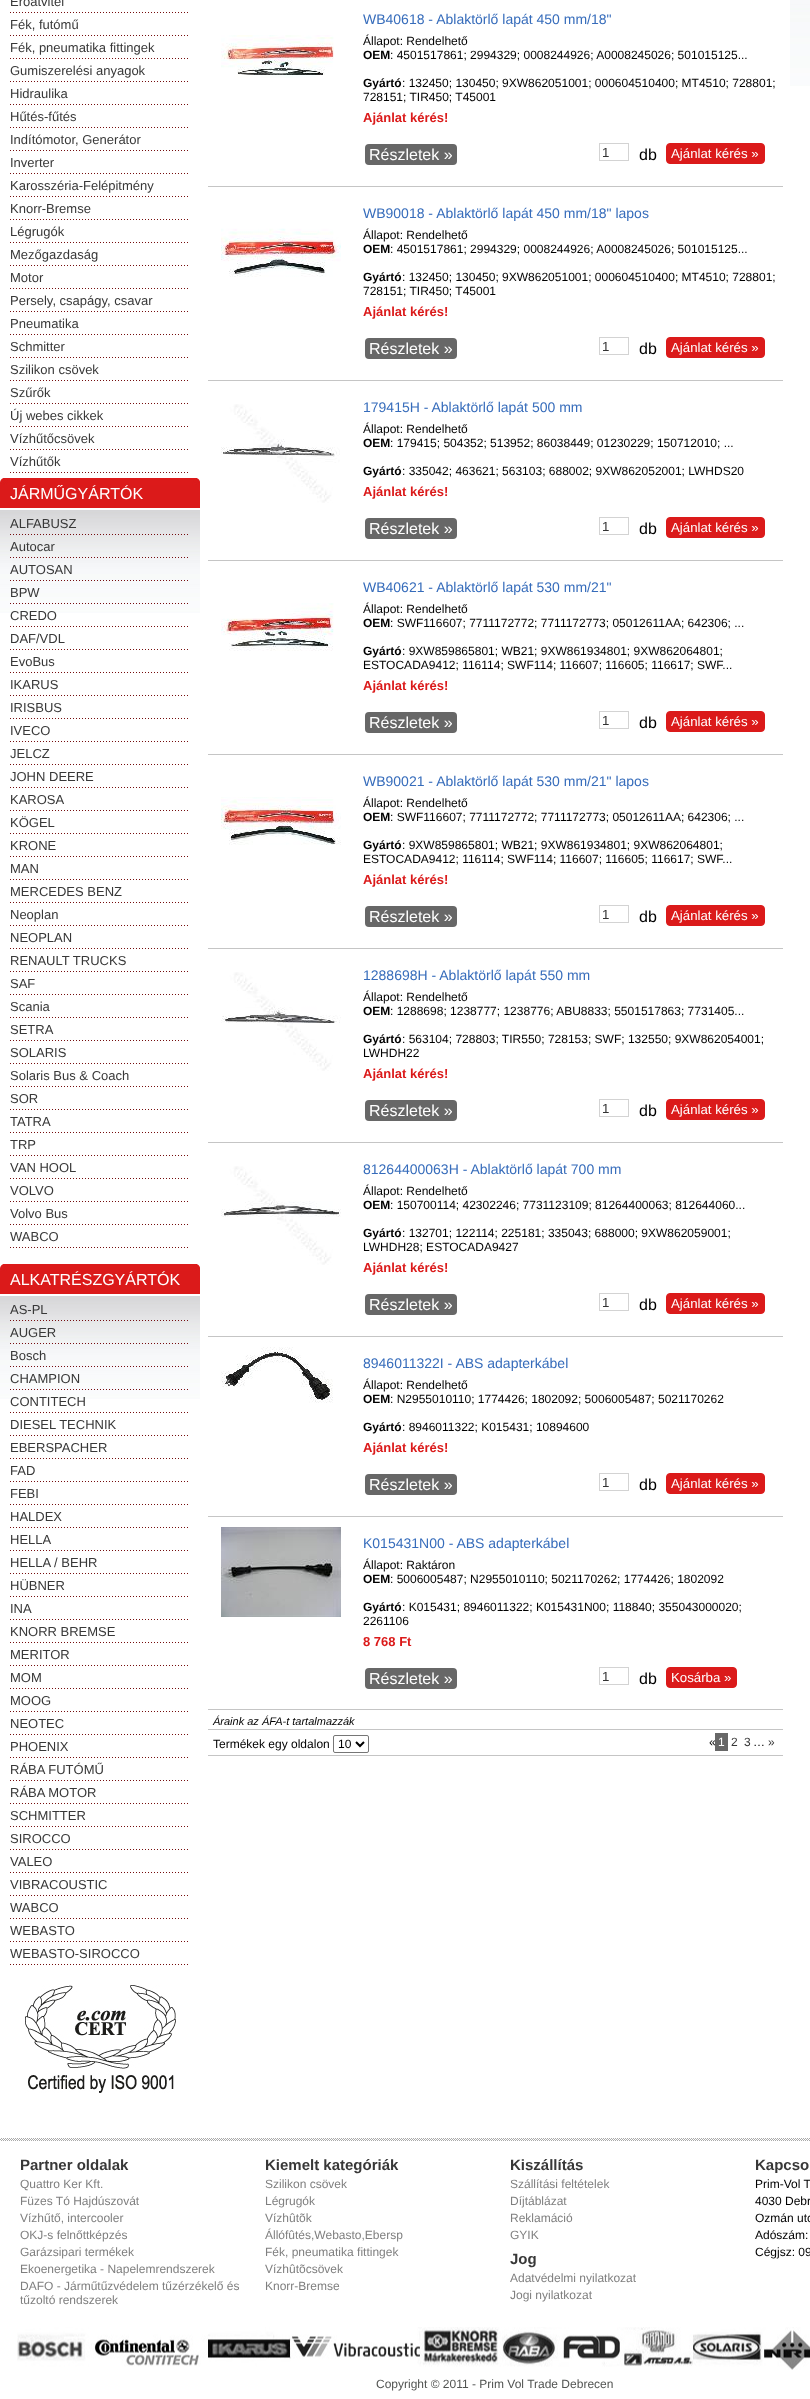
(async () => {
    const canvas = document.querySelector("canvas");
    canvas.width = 810;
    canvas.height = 2399;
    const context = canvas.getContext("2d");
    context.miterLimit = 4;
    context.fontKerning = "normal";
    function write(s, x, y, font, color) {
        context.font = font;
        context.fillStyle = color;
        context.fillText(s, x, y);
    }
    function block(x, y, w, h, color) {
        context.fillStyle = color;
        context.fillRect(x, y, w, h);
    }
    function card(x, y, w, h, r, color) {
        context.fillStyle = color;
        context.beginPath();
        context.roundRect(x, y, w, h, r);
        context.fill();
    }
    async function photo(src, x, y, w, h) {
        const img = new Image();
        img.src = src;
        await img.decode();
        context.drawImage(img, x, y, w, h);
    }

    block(0, 0, 810, 2399, "rgb(255, 255, 255)");
    await photo("media/1.png", 10, 12, 178, 1);
    write("Erőátvitel", 10, 6, "13px Liberation Sans", "rgb(56, 56, 56)");
    await photo("media/1.png", 10, 35, 178, 1);
    write("Fék, futómű", 10, 29, "13px Liberation Sans", "rgb(56, 56, 56)");
    await photo("media/1.png", 10, 58, 178, 1);
    write("Fék, pneumatika fittingek", 10, 52, "13px Liberation Sans", "rgb(56, 56, 56)");
    await photo("media/1.png", 10, 81, 178, 1);
    write("Gumiszerelési anyagok", 10, 75, "13px Liberation Sans", "rgb(56, 56, 56)");
    await photo("media/1.png", 10, 104, 178, 1);
    write("Hidraulika", 10, 98, "13px Liberation Sans", "rgb(56, 56, 56)");
    await photo("media/1.png", 10, 127, 178, 1);
    write("Hűtés-fűtés", 10, 121, "13px Liberation Sans", "rgb(56, 56, 56)");
    await photo("media/1.png", 10, 150, 178, 1);
    write("Indítómotor, Generátor", 10, 144, "13px Liberation Sans", "rgb(56, 56, 56)");
    await photo("media/1.png", 10, 173, 178, 1);
    write("Inverter", 10, 167, "13px Liberation Sans", "rgb(56, 56, 56)");
    await photo("media/1.png", 10, 196, 178, 1);
    write("Karosszéria-Felépitmény", 10, 190, "13px Liberation Sans", "rgb(56, 56, 56)");
    await photo("media/1.png", 10, 219, 178, 1);
    write("Knorr-Bremse", 10, 213, "13px Liberation Sans", "rgb(56, 56, 56)");
    await photo("media/1.png", 10, 242, 178, 1);
    write("Légrugók", 10, 236, "13px Liberation Sans", "rgb(56, 56, 56)");
    await photo("media/1.png", 10, 265, 178, 1);
    write("Mezőgazdaság", 10, 259, "13px Liberation Sans", "rgb(56, 56, 56)");
    await photo("media/1.png", 10, 288, 178, 1);
    write("Motor", 10, 282, "13px Liberation Sans", "rgb(56, 56, 56)");
    await photo("media/1.png", 10, 311, 178, 1);
    write("Persely, csapágy, csavar", 10, 305, "13px Liberation Sans", "rgb(56, 56, 56)");
    await photo("media/1.png", 10, 334, 178, 1);
    write("Pneumatika", 10, 328, "13px Liberation Sans", "rgb(56, 56, 56)");
    await photo("media/1.png", 10, 357, 178, 1);
    write("Schmitter", 10, 351, "13px Liberation Sans", "rgb(56, 56, 56)");
    await photo("media/1.png", 10, 380, 178, 1);
    write("Szilikon csövek", 10, 374, "13px Liberation Sans", "rgb(56, 56, 56)");
    await photo("media/1.png", 10, 403, 178, 1);
    write("Szűrők", 10, 397, "13px Liberation Sans", "rgb(56, 56, 56)");
    await photo("media/1.png", 10, 426, 178, 1);
    write("Új webes cikkek", 10, 420, "13px Liberation Sans", "rgb(56, 56, 56)");
    await photo("media/1.png", 10, 449, 178, 1);
    write("Vízhűtőcsövek", 10, 443, "13px Liberation Sans", "rgb(56, 56, 56)");
    await photo("media/1.png", 10, 472, 178, 1);
    write("Vízhűtők", 10, 466, "13px Liberation Sans", "rgb(56, 56, 56)");
    block(0, 485, 200, 23, "rgb(219, 26, 26)");
    await photo("media/2.png", 0, 478, 200, 7);
    write("JÁRMŰGYÁRTÓK", 10, 499, "16px Liberation Sans", "rgb(255, 255, 255)");
    await photo("media/3.png", 0, 510, 200, 103);
    await photo("media/4.png", 10, 534, 178, 1);
    write("ALFABUSZ", 10, 528, "13px Liberation Sans", "rgb(56, 56, 56)");
    await photo("media/5.png", 10, 557, 178, 1);
    write("Autocar", 10, 551, "13px Liberation Sans", "rgb(56, 56, 56)");
    await photo("media/6.png", 10, 580, 178, 1);
    write("AUTOSAN", 10, 574, "13px Liberation Sans", "rgb(56, 56, 56)");
    await photo("media/7.png", 10, 603, 178, 1);
    write("BPW", 10, 597, "13px Liberation Sans", "rgb(56, 56, 56)");
    await photo("media/1.png", 10, 626, 178, 1);
    write("CREDO", 10, 620, "13px Liberation Sans", "rgb(56, 56, 56)");
    await photo("media/1.png", 10, 649, 178, 1);
    write("DAF/VDL", 10, 643, "13px Liberation Sans", "rgb(56, 56, 56)");
    await photo("media/1.png", 10, 672, 178, 1);
    write("EvoBus", 10, 666, "13px Liberation Sans", "rgb(56, 56, 56)");
    await photo("media/1.png", 10, 695, 178, 1);
    write("IKARUS", 10, 689, "13px Liberation Sans", "rgb(56, 56, 56)");
    await photo("media/1.png", 10, 718, 178, 1);
    write("IRISBUS", 10, 712, "13px Liberation Sans", "rgb(56, 56, 56)");
    await photo("media/1.png", 10, 741, 178, 1);
    write("IVECO", 10, 735, "13px Liberation Sans", "rgb(56, 56, 56)");
    await photo("media/1.png", 10, 764, 178, 1);
    write("JELCZ", 10, 758, "13px Liberation Sans", "rgb(56, 56, 56)");
    await photo("media/1.png", 10, 787, 178, 1);
    write("JOHN DEERE", 10, 781, "13px Liberation Sans", "rgb(56, 56, 56)");
    await photo("media/1.png", 10, 810, 178, 1);
    write("KAROSA", 10, 804, "13px Liberation Sans", "rgb(56, 56, 56)");
    await photo("media/1.png", 10, 833, 178, 1);
    write("KÖGEL", 10, 827, "13px Liberation Sans", "rgb(56, 56, 56)");
    await photo("media/1.png", 10, 856, 178, 1);
    write("KRONE", 10, 850, "13px Liberation Sans", "rgb(56, 56, 56)");
    await photo("media/1.png", 10, 879, 178, 1);
    write("MAN", 10, 873, "13px Liberation Sans", "rgb(56, 56, 56)");
    await photo("media/1.png", 10, 902, 178, 1);
    write("MERCEDES BENZ", 10, 896, "13px Liberation Sans", "rgb(56, 56, 56)");
    await photo("media/1.png", 10, 925, 178, 1);
    write("Neoplan", 10, 919, "13px Liberation Sans", "rgb(56, 56, 56)");
    await photo("media/1.png", 10, 948, 178, 1);
    write("NEOPLAN", 10, 942, "13px Liberation Sans", "rgb(56, 56, 56)");
    await photo("media/1.png", 10, 971, 178, 1);
    write("RENAULT TRUCKS", 10, 965, "13px Liberation Sans", "rgb(56, 56, 56)");
    await photo("media/1.png", 10, 994, 178, 1);
    write("SAF", 10, 988, "13px Liberation Sans", "rgb(56, 56, 56)");
    await photo("media/1.png", 10, 1017, 178, 1);
    write("Scania", 10, 1011, "13px Liberation Sans", "rgb(56, 56, 56)");
    await photo("media/1.png", 10, 1040, 178, 1);
    write("SETRA", 10, 1034, "13px Liberation Sans", "rgb(56, 56, 56)");
    await photo("media/1.png", 10, 1063, 178, 1);
    write("SOLARIS", 10, 1057, "13px Liberation Sans", "rgb(56, 56, 56)");
    await photo("media/1.png", 10, 1086, 178, 1);
    write("Solaris Bus & Coach", 10, 1080, "13px Liberation Sans", "rgb(56, 56, 56)");
    await photo("media/1.png", 10, 1109, 178, 1);
    write("SOR", 10, 1103, "13px Liberation Sans", "rgb(56, 56, 56)");
    await photo("media/1.png", 10, 1132, 178, 1);
    write("TATRA", 10, 1126, "13px Liberation Sans", "rgb(56, 56, 56)");
    await photo("media/1.png", 10, 1155, 178, 1);
    write("TRP", 10, 1149, "13px Liberation Sans", "rgb(56, 56, 56)");
    await photo("media/1.png", 10, 1178, 178, 1);
    write("VAN HOOL", 10, 1172, "13px Liberation Sans", "rgb(56, 56, 56)");
    await photo("media/1.png", 10, 1201, 178, 1);
    write("VOLVO", 10, 1195, "13px Liberation Sans", "rgb(56, 56, 56)");
    await photo("media/1.png", 10, 1224, 178, 1);
    write("Volvo Bus", 10, 1218, "13px Liberation Sans", "rgb(56, 56, 56)");
    await photo("media/1.png", 10, 1247, 178, 1);
    write("WABCO", 10, 1241, "13px Liberation Sans", "rgb(56, 56, 56)");
    block(0, 1271, 200, 23, "rgb(219, 26, 26)");
    await photo("media/2.png", 0, 1264, 200, 7);
    write("ALKATRÉSZGYÁRTÓK", 10, 1285, "16px Liberation Sans", "rgb(255, 255, 255)");
    await photo("media/3.png", 0, 1296, 200, 103);
    await photo("media/4.png", 10, 1320, 178, 1);
    write("AS-PL", 10, 1314, "13px Liberation Sans", "rgb(56, 56, 56)");
    await photo("media/5.png", 10, 1343, 178, 1);
    write("AUGER", 10, 1337, "13px Liberation Sans", "rgb(56, 56, 56)");
    await photo("media/6.png", 10, 1366, 178, 1);
    write("Bosch", 10, 1360, "13px Liberation Sans", "rgb(56, 56, 56)");
    await photo("media/7.png", 10, 1389, 178, 1);
    write("CHAMPION", 10, 1383, "13px Liberation Sans", "rgb(56, 56, 56)");
    await photo("media/1.png", 10, 1412, 178, 1);
    write("CONTITECH", 10, 1406, "13px Liberation Sans", "rgb(56, 56, 56)");
    await photo("media/1.png", 10, 1435, 178, 1);
    write("DIESEL TECHNIK", 10, 1429, "13px Liberation Sans", "rgb(56, 56, 56)");
    await photo("media/1.png", 10, 1458, 178, 1);
    write("EBERSPACHER", 10, 1452, "13px Liberation Sans", "rgb(56, 56, 56)");
    await photo("media/1.png", 10, 1481, 178, 1);
    write("FAD", 10, 1475, "13px Liberation Sans", "rgb(56, 56, 56)");
    await photo("media/1.png", 10, 1504, 178, 1);
    write("FEBI", 10, 1498, "13px Liberation Sans", "rgb(56, 56, 56)");
    await photo("media/1.png", 10, 1527, 178, 1);
    write("HALDEX", 10, 1521, "13px Liberation Sans", "rgb(56, 56, 56)");
    await photo("media/1.png", 10, 1550, 178, 1);
    write("HELLA", 10, 1544, "13px Liberation Sans", "rgb(56, 56, 56)");
    await photo("media/1.png", 10, 1573, 178, 1);
    write("HELLA / BEHR", 10, 1567, "13px Liberation Sans", "rgb(56, 56, 56)");
    await photo("media/1.png", 10, 1596, 178, 1);
    write("HÜBNER", 10, 1590, "13px Liberation Sans", "rgb(56, 56, 56)");
    await photo("media/1.png", 10, 1619, 178, 1);
    write("INA", 10, 1613, "13px Liberation Sans", "rgb(56, 56, 56)");
    await photo("media/1.png", 10, 1642, 178, 1);
    write("KNORR BREMSE", 10, 1636, "13px Liberation Sans", "rgb(56, 56, 56)");
    await photo("media/1.png", 10, 1665, 178, 1);
    write("MERITOR", 10, 1659, "13px Liberation Sans", "rgb(56, 56, 56)");
    await photo("media/1.png", 10, 1688, 178, 1);
    write("MOM", 10, 1682, "13px Liberation Sans", "rgb(56, 56, 56)");
    await photo("media/1.png", 10, 1711, 178, 1);
    write("MOOG", 10, 1705, "13px Liberation Sans", "rgb(56, 56, 56)");
    await photo("media/1.png", 10, 1734, 178, 1);
    write("NEOTEC", 10, 1728, "13px Liberation Sans", "rgb(56, 56, 56)");
    await photo("media/1.png", 10, 1757, 178, 1);
    write("PHOENIX", 10, 1751, "13px Liberation Sans", "rgb(56, 56, 56)");
    await photo("media/1.png", 10, 1780, 178, 1);
    write("RÁBA FUTÓMŰ", 10, 1774, "13px Liberation Sans", "rgb(56, 56, 56)");
    await photo("media/1.png", 10, 1803, 178, 1);
    write("RÁBA MOTOR", 10, 1797, "13px Liberation Sans", "rgb(56, 56, 56)");
    await photo("media/1.png", 10, 1826, 178, 1);
    write("SCHMITTER", 10, 1820, "13px Liberation Sans", "rgb(56, 56, 56)");
    await photo("media/1.png", 10, 1849, 178, 1);
    write("SIROCCO", 10, 1843, "13px Liberation Sans", "rgb(56, 56, 56)");
    await photo("media/1.png", 10, 1872, 178, 1);
    write("VALEO", 10, 1866, "13px Liberation Sans", "rgb(56, 56, 56)");
    await photo("media/1.png", 10, 1895, 178, 1);
    write("VIBRACOUSTIC", 10, 1889, "13px Liberation Sans", "rgb(56, 56, 56)");
    await photo("media/1.png", 10, 1918, 178, 1);
    write("WABCO", 10, 1912, "13px Liberation Sans", "rgb(56, 56, 56)");
    await photo("media/1.png", 10, 1941, 178, 1);
    write("WEBASTO", 10, 1935, "13px Liberation Sans", "rgb(56, 56, 56)");
    await photo("media/1.png", 10, 1964, 178, 1);
    write("WEBASTO-SIROCCO", 10, 1958, "13px Liberation Sans", "rgb(56, 56, 56)");
    await photo("media/8.png", 25, 1985, 151, 108);
    await photo("media/9.png", 221, 35, 113, 43);
    write("WB40618 - Ablaktörlő lapát 450 mm/18\"", 363, 24, "14px Liberation Sans", "rgb(54, 108, 187)");
    write("Állapot: Rendelhető", 363, 45, "12px Liberation Sans", "rgb(0, 0, 0)");
    write("OEM", 363, 59, "bold 12px Liberation Sans", "rgb(0, 0, 0)");
    write(": 4501517861; 2994329; 0008244926; A0008245026; 501015125...", 390, 59, "12px Liberation Sans", "rgb(0, 0, 0)");
    write("Gyártó", 363, 87, "bold 12px Liberation Sans", "rgb(0, 0, 0)");
    write(": 132450; 130450; 9XW862051001; 000604510400; MT4510; 728801;", 402, 87, "12px Liberation Sans", "rgb(0, 0, 0)");
    write("728151; TIR450; T45001", 363, 101, "12px Liberation Sans", "rgb(0, 0, 0)");
    write("Ajánlat kérés!", 363, 122, "bold 13px Liberation Sans", "rgb(219, 26, 26)");
    card(365, 144, 92, 21, 4, "rgb(103, 103, 103)");
    write("Részletek »", 369, 160, "16px Liberation Sans", "rgb(255, 255, 255)");
    context.strokeStyle = "rgb(211, 211, 211)";
    context.strokeRect(599.5, 143.5, 29, 17);
    write("1", 602, 157, "13.25px Liberation Sans", "rgb(50, 50, 50)");
    write("db", 639, 160, "16px Liberation Sans", "rgb(0, 0, 0)");
    context.fillStyle = "rgb(219, 26, 26)";
    context.beginPath();
    context.roundRect(666.5, 143.5, 98, 20, 3.5);
    context.fill();
    context.strokeStyle = "rgb(219, 26, 26)";
    context.stroke();
    write("Ajánlat kérés »", 671, 158, "13.25px Liberation Sans", "rgb(255, 255, 255)");
    block(208, 186, 575, 1, "rgb(197, 197, 197)");
    await photo("media/10.png", 221, 228, 120, 49);
    write("WB90018 - Ablaktörlő lapát 450 mm/18\" lapos", 363, 218, "14px Liberation Sans", "rgb(54, 108, 187)");
    write("Állapot: Rendelhető", 363, 239, "12px Liberation Sans", "rgb(0, 0, 0)");
    write("OEM", 363, 253, "bold 12px Liberation Sans", "rgb(0, 0, 0)");
    write(": 4501517861; 2994329; 0008244926; A0008245026; 501015125...", 390, 253, "12px Liberation Sans", "rgb(0, 0, 0)");
    write("Gyártó", 363, 281, "bold 12px Liberation Sans", "rgb(0, 0, 0)");
    write(": 132450; 130450; 9XW862051001; 000604510400; MT4510; 728801;", 402, 281, "12px Liberation Sans", "rgb(0, 0, 0)");
    write("728151; TIR450; T45001", 363, 295, "12px Liberation Sans", "rgb(0, 0, 0)");
    write("Ajánlat kérés!", 363, 316, "bold 13px Liberation Sans", "rgb(219, 26, 26)");
    card(365, 338, 92, 21, 4, "rgb(103, 103, 103)");
    write("Részletek »", 369, 354, "16px Liberation Sans", "rgb(255, 255, 255)");
    context.strokeStyle = "rgb(211, 211, 211)";
    context.strokeRect(599.5, 337.5, 29, 17);
    write("1", 602, 351, "13.25px Liberation Sans", "rgb(50, 50, 50)");
    write("db", 639, 354, "16px Liberation Sans", "rgb(0, 0, 0)");
    context.fillStyle = "rgb(219, 26, 26)";
    context.beginPath();
    context.roundRect(666.5, 337.5, 98, 20, 3.5);
    context.fill();
    context.strokeStyle = "rgb(219, 26, 26)";
    context.stroke();
    write("Ajánlat kérés »", 671, 352, "13.25px Liberation Sans", "rgb(255, 255, 255)");
    block(208, 380, 575, 1, "rgb(197, 197, 197)");
    await photo("media/11.png", 221, 404, 119, 99);
    write("179415H - Ablaktörlő lapát 500 mm", 363, 412, "14px Liberation Sans", "rgb(54, 108, 187)");
    write("Állapot: Rendelhető", 363, 433, "12px Liberation Sans", "rgb(0, 0, 0)");
    write("OEM", 363, 447, "bold 12px Liberation Sans", "rgb(0, 0, 0)");
    write(": 179415; 504352; 513952; 86038449; 01230229; 150712010; ...", 390, 447, "12px Liberation Sans", "rgb(0, 0, 0)");
    write("Gyártó", 363, 475, "bold 12px Liberation Sans", "rgb(0, 0, 0)");
    write(": 335042; 463621; 563103; 688002; 9XW862052001; LWHDS20", 402, 475, "12px Liberation Sans", "rgb(0, 0, 0)");
    write("Ajánlat kérés!", 363, 496, "bold 13px Liberation Sans", "rgb(219, 26, 26)");
    card(365, 518, 92, 21, 4, "rgb(103, 103, 103)");
    write("Részletek »", 369, 534, "16px Liberation Sans", "rgb(255, 255, 255)");
    context.strokeStyle = "rgb(211, 211, 211)";
    context.strokeRect(599.5, 517.5, 29, 17);
    write("1", 602, 531, "13.25px Liberation Sans", "rgb(50, 50, 50)");
    write("db", 639, 534, "16px Liberation Sans", "rgb(0, 0, 0)");
    context.fillStyle = "rgb(219, 26, 26)";
    context.beginPath();
    context.roundRect(666.5, 517.5, 98, 20, 3.5);
    context.fill();
    context.strokeStyle = "rgb(219, 26, 26)";
    context.stroke();
    write("Ajánlat kérés »", 671, 532, "13.25px Liberation Sans", "rgb(255, 255, 255)");
    block(208, 560, 575, 1, "rgb(197, 197, 197)");
    await photo("media/12.png", 221, 603, 113, 48);
    write("WB40621 - Ablaktörlő lapát 530 mm/21\"", 363, 592, "14px Liberation Sans", "rgb(54, 108, 187)");
    write("Állapot: Rendelhető", 363, 613, "12px Liberation Sans", "rgb(0, 0, 0)");
    write("OEM", 363, 627, "bold 12px Liberation Sans", "rgb(0, 0, 0)");
    write(": SWF116607; 7711172772; 7711172773; 05012611AA; 642306; ...", 390, 627, "12px Liberation Sans", "rgb(0, 0, 0)");
    write("Gyártó", 363, 655, "bold 12px Liberation Sans", "rgb(0, 0, 0)");
    write(": 9XW859865801; WB21; 9XW861934801; 9XW862064801;", 402, 655, "12px Liberation Sans", "rgb(0, 0, 0)");
    write("ESTOCADA9412; 116114; SWF114; 116607; 116605; 116617; SWF...", 363, 669, "12px Liberation Sans", "rgb(0, 0, 0)");
    write("Ajánlat kérés!", 363, 690, "bold 13px Liberation Sans", "rgb(219, 26, 26)");
    card(365, 712, 92, 21, 4, "rgb(103, 103, 103)");
    write("Részletek »", 369, 728, "16px Liberation Sans", "rgb(255, 255, 255)");
    context.strokeStyle = "rgb(211, 211, 211)";
    context.strokeRect(599.5, 711.5, 29, 17);
    write("1", 602, 725, "13.25px Liberation Sans", "rgb(50, 50, 50)");
    write("db", 639, 728, "16px Liberation Sans", "rgb(0, 0, 0)");
    context.fillStyle = "rgb(219, 26, 26)";
    context.beginPath();
    context.roundRect(666.5, 711.5, 98, 20, 3.5);
    context.fill();
    context.strokeStyle = "rgb(219, 26, 26)";
    context.stroke();
    write("Ajánlat kérés »", 671, 726, "13.25px Liberation Sans", "rgb(255, 255, 255)");
    block(208, 754, 575, 1, "rgb(197, 197, 197)");
    await photo("media/13.png", 221, 797, 120, 48);
    write("WB90021 - Ablaktörlő lapát 530 mm/21\" lapos", 363, 786, "14px Liberation Sans", "rgb(54, 108, 187)");
    write("Állapot: Rendelhető", 363, 807, "12px Liberation Sans", "rgb(0, 0, 0)");
    write("OEM", 363, 821, "bold 12px Liberation Sans", "rgb(0, 0, 0)");
    write(": SWF116607; 7711172772; 7711172773; 05012611AA; 642306; ...", 390, 821, "12px Liberation Sans", "rgb(0, 0, 0)");
    write("Gyártó", 363, 849, "bold 12px Liberation Sans", "rgb(0, 0, 0)");
    write(": 9XW859865801; WB21; 9XW861934801; 9XW862064801;", 402, 849, "12px Liberation Sans", "rgb(0, 0, 0)");
    write("ESTOCADA9412; 116114; SWF114; 116607; 116605; 116617; SWF...", 363, 863, "12px Liberation Sans", "rgb(0, 0, 0)");
    write("Ajánlat kérés!", 363, 884, "bold 13px Liberation Sans", "rgb(219, 26, 26)");
    card(365, 906, 92, 21, 4, "rgb(103, 103, 103)");
    write("Részletek »", 369, 922, "16px Liberation Sans", "rgb(255, 255, 255)");
    context.strokeStyle = "rgb(211, 211, 211)";
    context.strokeRect(599.5, 905.5, 29, 17);
    write("1", 602, 919, "13.25px Liberation Sans", "rgb(50, 50, 50)");
    write("db", 639, 922, "16px Liberation Sans", "rgb(0, 0, 0)");
    context.fillStyle = "rgb(219, 26, 26)";
    context.beginPath();
    context.roundRect(666.5, 905.5, 98, 20, 3.5);
    context.fill();
    context.strokeStyle = "rgb(219, 26, 26)";
    context.stroke();
    write("Ajánlat kérés »", 671, 920, "13.25px Liberation Sans", "rgb(255, 255, 255)");
    block(208, 948, 575, 1, "rgb(197, 197, 197)");
    await photo("media/14.png", 221, 972, 120, 99);
    write("1288698H - Ablaktörlő lapát 550 mm", 363, 980, "14px Liberation Sans", "rgb(54, 108, 187)");
    write("Állapot: Rendelhető", 363, 1001, "12px Liberation Sans", "rgb(0, 0, 0)");
    write("OEM", 363, 1015, "bold 12px Liberation Sans", "rgb(0, 0, 0)");
    write(": 1288698; 1238777; 1238776; ABU8833; 5501517863; 7731405...", 390, 1015, "12px Liberation Sans", "rgb(0, 0, 0)");
    write("Gyártó", 363, 1043, "bold 12px Liberation Sans", "rgb(0, 0, 0)");
    write(": 563104; 728803; TIR550; 728153; SWF; 132550; 9XW862054001;", 402, 1043, "12px Liberation Sans", "rgb(0, 0, 0)");
    write("LWHDH22", 363, 1057, "12px Liberation Sans", "rgb(0, 0, 0)");
    write("Ajánlat kérés!", 363, 1078, "bold 13px Liberation Sans", "rgb(219, 26, 26)");
    card(365, 1100, 92, 21, 4, "rgb(103, 103, 103)");
    write("Részletek »", 369, 1116, "16px Liberation Sans", "rgb(255, 255, 255)");
    context.strokeStyle = "rgb(211, 211, 211)";
    context.strokeRect(599.5, 1099.5, 29, 17);
    write("1", 602, 1113, "13.25px Liberation Sans", "rgb(50, 50, 50)");
    write("db", 639, 1116, "16px Liberation Sans", "rgb(0, 0, 0)");
    context.fillStyle = "rgb(219, 26, 26)";
    context.beginPath();
    context.roundRect(666.5, 1099.5, 98, 20, 3.5);
    context.fill();
    context.strokeStyle = "rgb(219, 26, 26)";
    context.stroke();
    write("Ajánlat kérés »", 671, 1114, "13.25px Liberation Sans", "rgb(255, 255, 255)");
    block(208, 1142, 575, 1, "rgb(197, 197, 197)");
    await photo("media/15.png", 221, 1166, 120, 99);
    write("81264400063H - Ablaktörlő lapát 700 mm", 363, 1174, "14px Liberation Sans", "rgb(54, 108, 187)");
    write("Állapot: Rendelhető", 363, 1195, "12px Liberation Sans", "rgb(0, 0, 0)");
    write("OEM", 363, 1209, "bold 12px Liberation Sans", "rgb(0, 0, 0)");
    write(": 150700114; 42302246; 7731123109; 81264400063; 812644060...", 390, 1209, "12px Liberation Sans", "rgb(0, 0, 0)");
    write("Gyártó", 363, 1237, "bold 12px Liberation Sans", "rgb(0, 0, 0)");
    write(": 132701; 122114; 225181; 335043; 688000; 9XW862059001;", 402, 1237, "12px Liberation Sans", "rgb(0, 0, 0)");
    write("LWHDH28; ESTOCADA9427", 363, 1251, "12px Liberation Sans", "rgb(0, 0, 0)");
    write("Ajánlat kérés!", 363, 1272, "bold 13px Liberation Sans", "rgb(219, 26, 26)");
    card(365, 1294, 92, 21, 4, "rgb(103, 103, 103)");
    write("Részletek »", 369, 1310, "16px Liberation Sans", "rgb(255, 255, 255)");
    context.strokeStyle = "rgb(211, 211, 211)";
    context.strokeRect(599.5, 1293.5, 29, 17);
    write("1", 602, 1307, "13.25px Liberation Sans", "rgb(50, 50, 50)");
    write("db", 639, 1310, "16px Liberation Sans", "rgb(0, 0, 0)");
    context.fillStyle = "rgb(219, 26, 26)";
    context.beginPath();
    context.roundRect(666.5, 1293.5, 98, 20, 3.5);
    context.fill();
    context.strokeStyle = "rgb(219, 26, 26)";
    context.stroke();
    write("Ajánlat kérés »", 671, 1308, "13.25px Liberation Sans", "rgb(255, 255, 255)");
    block(208, 1336, 575, 1, "rgb(197, 197, 197)");
    await photo("media/16.png", 221, 1347, 112, 56);
    write("8946011322I - ABS adapterkábel", 363, 1368, "14px Liberation Sans", "rgb(54, 108, 187)");
    write("Állapot: Rendelhető", 363, 1389, "12px Liberation Sans", "rgb(0, 0, 0)");
    write("OEM", 363, 1403, "bold 12px Liberation Sans", "rgb(0, 0, 0)");
    write(": N2955010110; 1774426; 1802092; 5006005487; 5021170262", 390, 1403, "12px Liberation Sans", "rgb(0, 0, 0)");
    write("Gyártó", 363, 1431, "bold 12px Liberation Sans", "rgb(0, 0, 0)");
    write(": 8946011322; K015431; 10894600", 402, 1431, "12px Liberation Sans", "rgb(0, 0, 0)");
    write("Ajánlat kérés!", 363, 1452, "bold 13px Liberation Sans", "rgb(219, 26, 26)");
    card(365, 1474, 92, 21, 4, "rgb(103, 103, 103)");
    write("Részletek »", 369, 1490, "16px Liberation Sans", "rgb(255, 255, 255)");
    context.strokeStyle = "rgb(211, 211, 211)";
    context.strokeRect(599.5, 1473.5, 29, 17);
    write("1", 602, 1487, "13.25px Liberation Sans", "rgb(50, 50, 50)");
    write("db", 639, 1490, "16px Liberation Sans", "rgb(0, 0, 0)");
    context.fillStyle = "rgb(219, 26, 26)";
    context.beginPath();
    context.roundRect(666.5, 1473.5, 98, 20, 3.5);
    context.fill();
    context.strokeStyle = "rgb(219, 26, 26)";
    context.stroke();
    write("Ajánlat kérés »", 671, 1488, "13.25px Liberation Sans", "rgb(255, 255, 255)");
    block(208, 1516, 575, 1, "rgb(197, 197, 197)");
    await photo("media/17.png", 221, 1527, 120, 90);
    write("K015431N00 - ABS adapterkábel", 363, 1548, "14px Liberation Sans", "rgb(54, 108, 187)");
    write("Állapot: Raktáron", 363, 1569, "12px Liberation Sans", "rgb(0, 0, 0)");
    write("OEM", 363, 1583, "bold 12px Liberation Sans", "rgb(0, 0, 0)");
    write(": 5006005487; N2955010110; 5021170262; 1774426; 1802092", 390, 1583, "12px Liberation Sans", "rgb(0, 0, 0)");
    write("Gyártó", 363, 1611, "bold 12px Liberation Sans", "rgb(0, 0, 0)");
    write(": K015431; 8946011322; K015431N00; 118840; 355043000020;", 402, 1611, "12px Liberation Sans", "rgb(0, 0, 0)");
    write("2261106", 363, 1625, "12px Liberation Sans", "rgb(0, 0, 0)");
    write("8 768 Ft", 363, 1646, "bold 13px Liberation Sans", "rgb(219, 26, 26)");
    card(365, 1668, 92, 21, 4, "rgb(103, 103, 103)");
    write("Részletek »", 369, 1684, "16px Liberation Sans", "rgb(255, 255, 255)");
    context.strokeStyle = "rgb(211, 211, 211)";
    context.strokeRect(599.5, 1667.5, 29, 17);
    write("1", 602, 1681, "13.25px Liberation Sans", "rgb(50, 50, 50)");
    write("db", 639, 1684, "16px Liberation Sans", "rgb(0, 0, 0)");
    context.fillStyle = "rgb(219, 26, 26)";
    context.beginPath();
    context.roundRect(666.5, 1667.5, 70, 20, 3.5);
    context.fill();
    context.strokeStyle = "rgb(219, 26, 26)";
    context.stroke();
    write("Kosárba »", 671, 1682, "13.25px Liberation Sans", "rgb(255, 255, 255)");
    block(208, 1709, 575, 1, "rgb(197, 197, 197)");
    write("Áraink az ÁFA-t tartalmazzák", 213, 1725, "italic 11px Liberation Sans", "rgb(0, 0, 0)");
    block(208, 1729, 575, 1, "rgb(197, 197, 197)");
    write("Termékek egy oldalon", 213, 1748, "12px Liberation Sans", "rgb(0, 0, 0)");
    context.beginPath();
    context.roundRect(333.5, 1735.5, 35, 17, 1.5);
    context.strokeStyle = "rgb(118, 118, 118)";
    context.stroke();
    context.beginPath();
    context.moveTo(356, 1742);
    context.lineTo(360, 1746);
    context.lineTo(364, 1742);
    context.strokeStyle = "rgb(0, 0, 0)";
    context.lineWidth = 2;
    context.stroke();
    write("10", 338, 1748, "12px Liberation Sans", "rgb(0, 0, 0)");
    write("«", 709, 1746, "12px Liberation Sans", "rgb(0, 0, 0)");
    block(715, 1733, 13, 18, "rgb(103, 103, 103)");
    write("1", 718, 1746, "12px Liberation Sans", "rgb(255, 255, 255)");
    write("2", 731, 1746, "12px Liberation Sans", "rgb(56, 56, 56)");
    write("3", 744, 1746, "12px Liberation Sans", "rgb(56, 56, 56)");
    write("…", 753, 1746, "12px Liberation Sans", "rgb(0, 0, 0)");
    write("»", 768, 1746, "12px Liberation Sans", "rgb(56, 56, 56)");
    block(208, 1755, 575, 1, "rgb(197, 197, 197)");
    await photo("media/18.png", 790, 0, 20, 86);
    await photo("media/19.png", 0, 2138, 810, 3);
    write("Partner oldalak", 20, 2170, "bold 15px Liberation Sans", "rgb(56, 56, 56)");
    write("Quattro Ker Kft.", 20, 2188, "12px Liberation Sans", "rgb(127, 127, 127)");
    write("Füzes Tó Hajdúszovát", 20, 2205, "12px Liberation Sans", "rgb(127, 127, 127)");
    write("Vízhűtő, intercooler", 20, 2222, "12px Liberation Sans", "rgb(127, 127, 127)");
    write("OKJ-s felnőttképzés", 20, 2239, "12px Liberation Sans", "rgb(127, 127, 127)");
    write("Garázsipari termékek", 20, 2256, "12px Liberation Sans", "rgb(127, 127, 127)");
    write("Ekoenergetika - Napelemrendszerek", 20, 2273, "12px Liberation Sans", "rgb(127, 127, 127)");
    write("DAFO - Járműtűzvédelem tűzérzékelő és", 20, 2290, "12px Liberation Sans", "rgb(127, 127, 127)");
    write("tűzoltó rendszerek", 20, 2304, "12px Liberation Sans", "rgb(127, 127, 127)");
    write("Kiemelt kategóriák", 265, 2170, "bold 15px Liberation Sans", "rgb(56, 56, 56)");
    write("Szilikon csövek", 265, 2188, "12px Liberation Sans", "rgb(127, 127, 127)");
    write("Légrugók", 265, 2205, "12px Liberation Sans", "rgb(127, 127, 127)");
    write("Vízhûtõk", 265, 2222, "12px Liberation Sans", "rgb(127, 127, 127)");
    write("Állófûtés,Webasto,Ebersp", 265, 2239, "12px Liberation Sans", "rgb(127, 127, 127)");
    write("Fék, pneumatika fittingek", 265, 2256, "12px Liberation Sans", "rgb(127, 127, 127)");
    write("Vízhûtõcsövek", 265, 2273, "12px Liberation Sans", "rgb(127, 127, 127)");
    write("Knorr-Bremse", 265, 2290, "12px Liberation Sans", "rgb(127, 127, 127)");
    write("Kiszállítás", 510, 2170, "bold 15px Liberation Sans", "rgb(56, 56, 56)");
    write("Szállítási feltételek", 510, 2188, "12px Liberation Sans", "rgb(127, 127, 127)");
    write("Díjtáblázat", 510, 2205, "12px Liberation Sans", "rgb(127, 127, 127)");
    write("Reklamáció", 510, 2222, "12px Liberation Sans", "rgb(127, 127, 127)");
    write("GYIK", 510, 2239, "12px Liberation Sans", "rgb(127, 127, 127)");
    write("Jog", 510, 2264, "bold 15px Liberation Sans", "rgb(56, 56, 56)");
    write("Adatvédelmi nyilatkozat", 510, 2282, "12px Liberation Sans", "rgb(127, 127, 127)");
    write("Jogi nyilatkozat", 510, 2299, "12px Liberation Sans", "rgb(127, 127, 127)");
    write("Kapcso", 755, 2170, "bold 15px Liberation Sans", "rgb(56, 56, 56)");
    write("Prim-Vol T", 755, 2188, "12px Liberation Sans", "rgb(0, 0, 0)");
    write("4030 Debr", 755, 2205, "12px Liberation Sans", "rgb(0, 0, 0)");
    write("Ozmán utc", 755, 2222, "12px Liberation Sans", "rgb(0, 0, 0)");
    write("Adószám:", 755, 2239, "12px Liberation Sans", "rgb(0, 0, 0)");
    write("Cégjsz: 09", 755, 2256, "12px Liberation Sans", "rgb(0, 0, 0)");
    await photo("media/20.png", 17, 2327, 793, 43);
    write("Copyright © 2011 - Prim Vol Trade Debrecen", 376, 2388, "12px Liberation Sans", "rgb(82, 84, 82)");
})();
